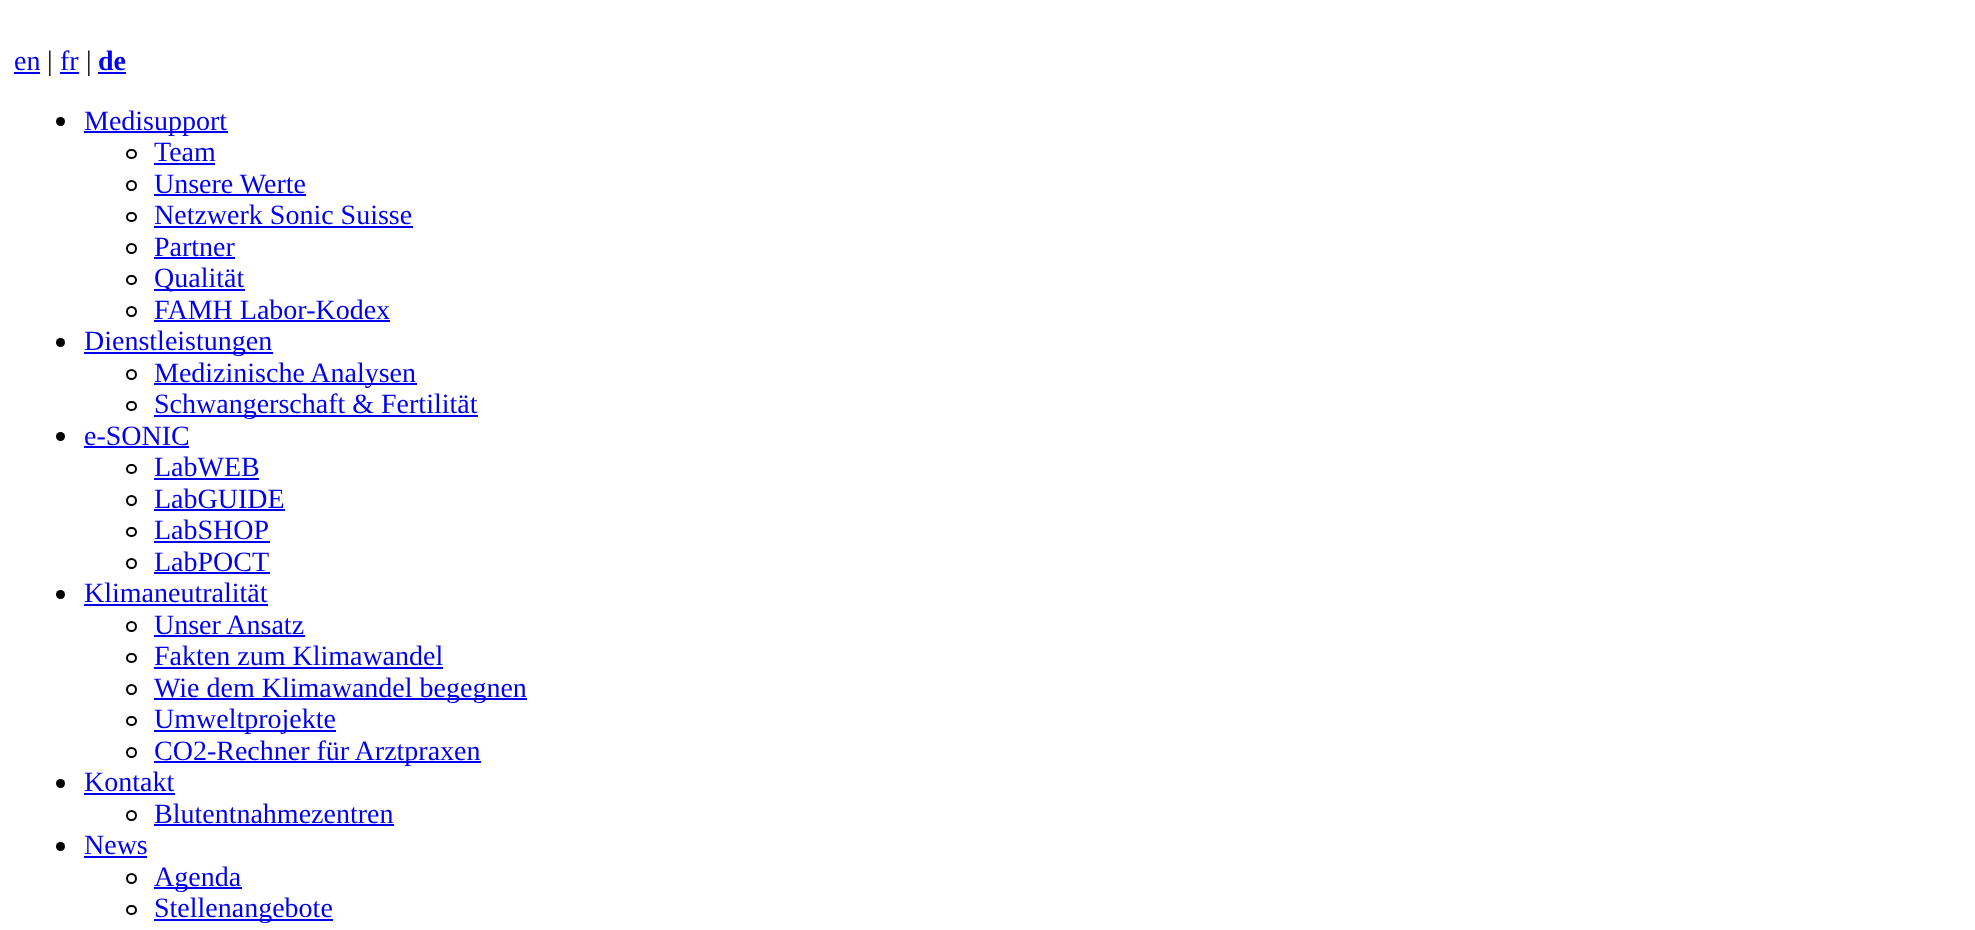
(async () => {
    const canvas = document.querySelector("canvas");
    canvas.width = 1975;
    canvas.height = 930;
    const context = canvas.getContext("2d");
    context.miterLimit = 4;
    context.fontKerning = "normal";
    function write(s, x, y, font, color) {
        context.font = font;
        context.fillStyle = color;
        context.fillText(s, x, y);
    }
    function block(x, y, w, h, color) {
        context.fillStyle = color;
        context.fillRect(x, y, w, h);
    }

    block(0, 0, 1975, 930, "rgb(255, 255, 255)");
    write("en", 14, 70, "28px Liberation Serif", "rgb(0, 0, 238)");
    block(14, 72, 26, 2, "rgb(0, 0, 238)");
    write("|", 47, 70, "28px Liberation Serif", "rgb(0, 0, 0)");
    write("fr", 60, 70, "28px Liberation Serif", "rgb(0, 0, 238)");
    block(60, 72, 19, 2, "rgb(0, 0, 238)");
    write("|", 86, 70, "28px Liberation Serif", "rgb(0, 0, 0)");
    write("de", 98, 70, "bold 28px Liberation Serif", "rgb(0, 0, 238)");
    block(98, 72, 28, 2, "rgb(0, 0, 238)");
    context.fillStyle = "rgb(0, 0, 0)";
    context.beginPath();
    context.arc(60.5, 121.5, 4.5, 0, Math.PI * 2);
    context.fill();
    block(84, 131, 144, 2, "rgb(0, 0, 238)");
    write("Medisupport", 84, 130, "28px Liberation Serif", "rgb(0, 0, 238)");
    context.beginPath();
    context.roundRect(127, 150, 9, 8, 4);
    context.strokeStyle = "rgb(0, 0, 0)";
    context.lineWidth = 2;
    context.stroke();
    write("Team", 154, 161, "28px Liberation Serif", "rgb(0, 0, 238)");
    block(154, 163, 61, 2, "rgb(0, 0, 238)");
    context.beginPath();
    context.arc(131.5, 185.5, 4.5, 0, Math.PI * 2);
    context.stroke();
    write("Unsere Werte", 154, 193, "28px Liberation Serif", "rgb(0, 0, 238)");
    block(154, 194, 152, 2, "rgb(0, 0, 238)");
    context.beginPath();
    context.roundRect(127, 213, 9, 8, 4);
    context.stroke();
    write("Netzwerk Sonic Suisse", 154, 224, "28px Liberation Serif", "rgb(0, 0, 238)");
    block(154, 226, 259, 2, "rgb(0, 0, 238)");
    context.beginPath();
    context.arc(131.5, 248.5, 4.5, 0, Math.PI * 2);
    context.stroke();
    write("Partner", 154, 256, "28px Liberation Serif", "rgb(0, 0, 238)");
    block(154, 257, 81, 2, "rgb(0, 0, 238)");
    context.beginPath();
    context.roundRect(127, 276, 9, 8, 4);
    context.stroke();
    block(154, 289, 91, 2, "rgb(0, 0, 238)");
    write("Qualität", 154, 287, "28px Liberation Serif", "rgb(0, 0, 238)");
    context.beginPath();
    context.arc(131.5, 311.5, 4.5, 0, Math.PI * 2);
    context.stroke();
    write("FAMH Labor-Kodex", 154, 319, "28px Liberation Serif", "rgb(0, 0, 238)");
    block(154, 320, 236, 2, "rgb(0, 0, 238)");
    context.fillStyle = "rgb(0, 0, 0)";
    context.beginPath();
    context.arc(60.5, 342.5, 4.5, 0, Math.PI * 2);
    context.fill();
    block(84, 352, 189, 2, "rgb(0, 0, 238)");
    write("Dienstleistungen", 84, 350, "28px Liberation Serif", "rgb(0, 0, 238)");
    context.beginPath();
    context.arc(131.5, 374.5, 4.5, 0, Math.PI * 2);
    context.stroke();
    block(154, 383, 263, 2, "rgb(0, 0, 238)");
    write("Medizinische Analysen", 154, 382, "28px Liberation Serif", "rgb(0, 0, 238)");
    context.beginPath();
    context.roundRect(127, 402, 9, 8, 4);
    context.stroke();
    block(154, 415, 324, 2, "rgb(0, 0, 238)");
    write("Schwangerschaft & Fertilität", 154, 413, "28px Liberation Serif", "rgb(0, 0, 238)");
    context.fillStyle = "rgb(0, 0, 0)";
    context.beginPath();
    context.arc(60.5, 436.5, 4.5, 0, Math.PI * 2);
    context.fill();
    write("e-SONIC", 84, 445, "28px Liberation Serif", "rgb(0, 0, 238)");
    block(84, 446, 105, 2, "rgb(0, 0, 238)");
    context.beginPath();
    context.roundRect(127, 465, 9, 8, 4);
    context.stroke();
    write("LabWEB", 154, 476, "28px Liberation Serif", "rgb(0, 0, 238)");
    block(154, 478, 105, 2, "rgb(0, 0, 238)");
    context.beginPath();
    context.arc(131.5, 500.5, 4.5, 0, Math.PI * 2);
    context.stroke();
    write("LabGUIDE", 154, 508, "28px Liberation Serif", "rgb(0, 0, 238)");
    block(154, 509, 131, 2, "rgb(0, 0, 238)");
    context.beginPath();
    context.roundRect(127, 528, 9, 8, 4);
    context.stroke();
    write("LabSHOP", 154, 539, "28px Liberation Serif", "rgb(0, 0, 238)");
    block(154, 541, 116, 2, "rgb(0, 0, 238)");
    context.beginPath();
    context.arc(131.5, 563.5, 4.5, 0, Math.PI * 2);
    context.stroke();
    write("LabPOCT", 154, 571, "28px Liberation Serif", "rgb(0, 0, 238)");
    block(154, 572, 116, 2, "rgb(0, 0, 238)");
    context.fillStyle = "rgb(0, 0, 0)";
    context.beginPath();
    context.arc(60.5, 594.5, 4.5, 0, Math.PI * 2);
    context.fill();
    write("Klimaneutralität", 84, 602, "28px Liberation Serif", "rgb(0, 0, 238)");
    block(84, 604, 184, 2, "rgb(0, 0, 238)");
    context.beginPath();
    context.arc(131.5, 626.5, 4.5, 0, Math.PI * 2);
    context.stroke();
    write("Unser Ansatz", 154, 634, "28px Liberation Serif", "rgb(0, 0, 238)");
    block(154, 635, 151, 2, "rgb(0, 0, 238)");
    context.beginPath();
    context.roundRect(127, 654, 9, 8, 4);
    context.stroke();
    write("Fakten zum Klimawandel", 154, 665, "28px Liberation Serif", "rgb(0, 0, 238)");
    block(154, 667, 289, 2, "rgb(0, 0, 238)");
    context.beginPath();
    context.arc(131.5, 689.5, 4.5, 0, Math.PI * 2);
    context.stroke();
    block(154, 698, 373, 2, "rgb(0, 0, 238)");
    write("Wie dem Klimawandel begegnen", 154, 697, "28px Liberation Serif", "rgb(0, 0, 238)");
    context.beginPath();
    context.roundRect(127, 717, 9, 8, 4);
    context.stroke();
    block(154, 730, 182, 2, "rgb(0, 0, 238)");
    write("Umweltprojekte", 154, 728, "28px Liberation Serif", "rgb(0, 0, 238)");
    context.beginPath();
    context.arc(131.5, 752.5, 4.5, 0, Math.PI * 2);
    context.stroke();
    block(154, 761, 327, 2, "rgb(0, 0, 238)");
    write("CO2-Rechner für Arztpraxen", 154, 760, "28px Liberation Serif", "rgb(0, 0, 238)");
    context.fillStyle = "rgb(0, 0, 0)";
    context.beginPath();
    context.arc(60.5, 783.5, 4.5, 0, Math.PI * 2);
    context.fill();
    write("Kontakt", 84, 791, "28px Liberation Serif", "rgb(0, 0, 238)");
    block(84, 793, 91, 2, "rgb(0, 0, 238)");
    context.beginPath();
    context.arc(131.5, 815.5, 4.5, 0, Math.PI * 2);
    context.stroke();
    write("Blutentnahmezentren", 154, 823, "28px Liberation Serif", "rgb(0, 0, 238)");
    block(154, 824, 240, 2, "rgb(0, 0, 238)");
    context.fillStyle = "rgb(0, 0, 0)";
    context.beginPath();
    context.arc(60.5, 846.5, 4.5, 0, Math.PI * 2);
    context.fill();
    write("News", 84, 854, "28px Liberation Serif", "rgb(0, 0, 238)");
    block(84, 856, 63, 2, "rgb(0, 0, 238)");
    context.beginPath();
    context.arc(131.5, 878.5, 4.5, 0, Math.PI * 2);
    context.stroke();
    block(154, 887, 88, 2, "rgb(0, 0, 238)");
    write("Agenda", 154, 886, "28px Liberation Serif", "rgb(0, 0, 238)");
    context.beginPath();
    context.roundRect(127, 906, 9, 8, 4);
    context.stroke();
    block(154, 919, 179, 2, "rgb(0, 0, 238)");
    write("Stellenangebote", 154, 917, "28px Liberation Serif", "rgb(0, 0, 238)");
})();
